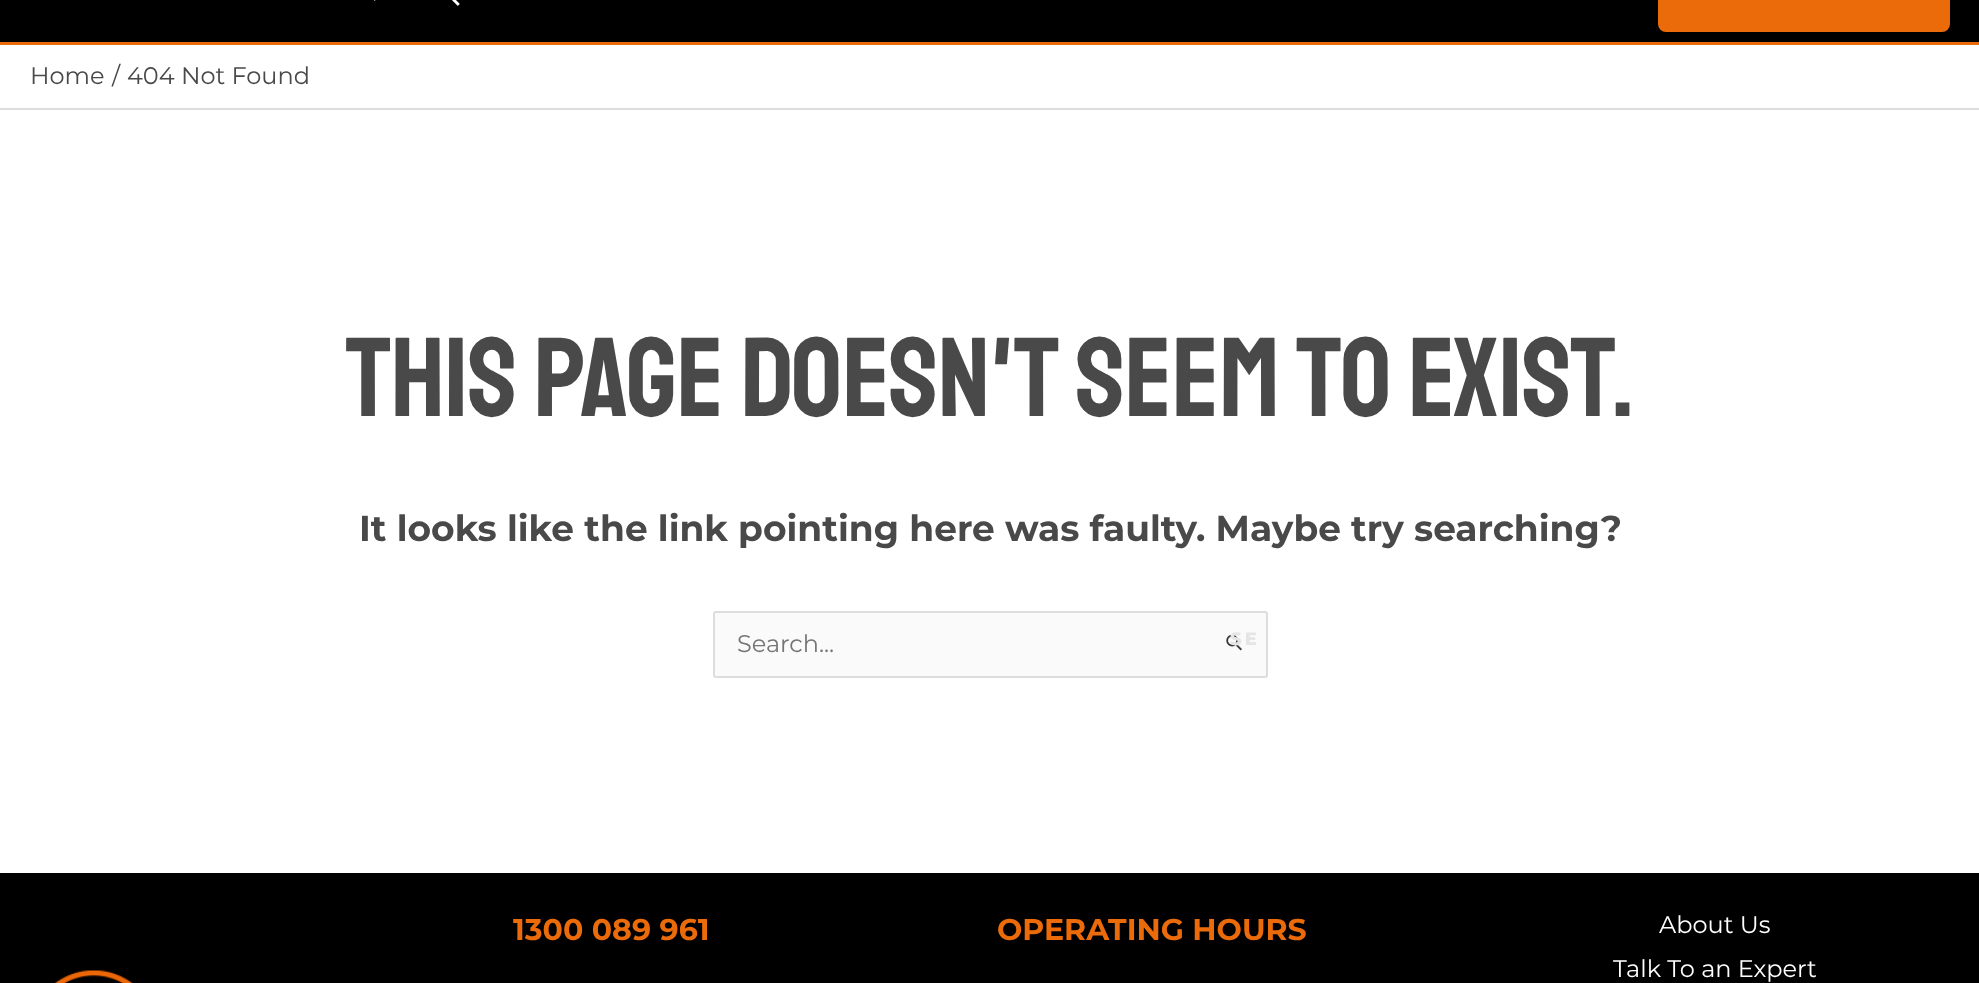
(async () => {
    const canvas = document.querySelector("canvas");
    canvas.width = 1979;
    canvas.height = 983;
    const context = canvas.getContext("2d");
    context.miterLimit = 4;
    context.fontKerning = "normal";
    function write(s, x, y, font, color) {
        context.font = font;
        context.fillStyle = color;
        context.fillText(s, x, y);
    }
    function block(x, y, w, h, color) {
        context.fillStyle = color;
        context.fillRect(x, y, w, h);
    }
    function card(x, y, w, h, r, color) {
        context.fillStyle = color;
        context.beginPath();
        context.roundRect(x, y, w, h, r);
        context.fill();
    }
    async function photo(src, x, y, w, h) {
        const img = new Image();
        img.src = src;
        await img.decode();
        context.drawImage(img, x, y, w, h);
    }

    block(0, 0, 1979, 983, "rgb(255, 255, 255)");
    block(0, 0, 1979, 42, "rgb(0, 0, 0)");
    block(0, 42, 1979, 3, "rgb(235, 107, 10)");
    await photo("media/1.png", 374, 0, 2, 1);
    await photo("media/2.png", 452, 0, 8, 6);
    card(1658, -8, 292, 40, 8, "rgb(235, 107, 10)");
    block(0, 108, 1979, 2, "rgb(221, 221, 221)");
    write("Home", 30, 84, "24px Montserrat", "rgb(73, 73, 73)");
    write("/", 112, 84, "24px Montserrat", "rgb(73, 73, 73)");
    write("404 Not Found", 127, 84, "24px Montserrat", "rgb(73, 73, 73)");
    write("This page doesn't seem to exist.", 346, 416, "112.5px Staatliches", "rgb(73, 73, 73)");
    write("It looks like the link pointing here was faulty. Maybe try searching?", 359, 541, "bold 36px Montserrat", "rgb(73, 73, 73)");
    context.fillStyle = "rgb(250, 250, 250)";
    context.beginPath();
    context.roundRect(714, 612, 553, 65, 2);
    context.fill();
    context.strokeStyle = "rgb(221, 221, 221)";
    context.lineWidth = 2;
    context.stroke();
    write("Search...", 737, 652, "24px Montserrat", "rgb(117, 117, 117)");
    await photo("media/3.png", 1226, 635, 16, 16);
    context.letterSpacing = "3px";
    write("SE", 1230, 645, "800 18px Montserrat", "rgb(229, 229, 229)");
    block(0, 873, 1979, 110, "rgb(0, 0, 0)");
    context.letterSpacing = "0px";
    write("1300 089 961", 513, 940, "bold 30px Montserrat", "rgb(235, 107, 10)");
    write("OPERATING HOURS", 997, 940, "bold 30px Montserrat", "rgb(235, 107, 10)");
    write("About Us", 1659, 933, "24px Montserrat", "rgb(255, 255, 255)");
    write("Talk To an Expert", 1613, 977, "24px Montserrat", "rgb(255, 255, 255)");
    await photo("media/4.png", 54, 970, 79, 13);
})();
